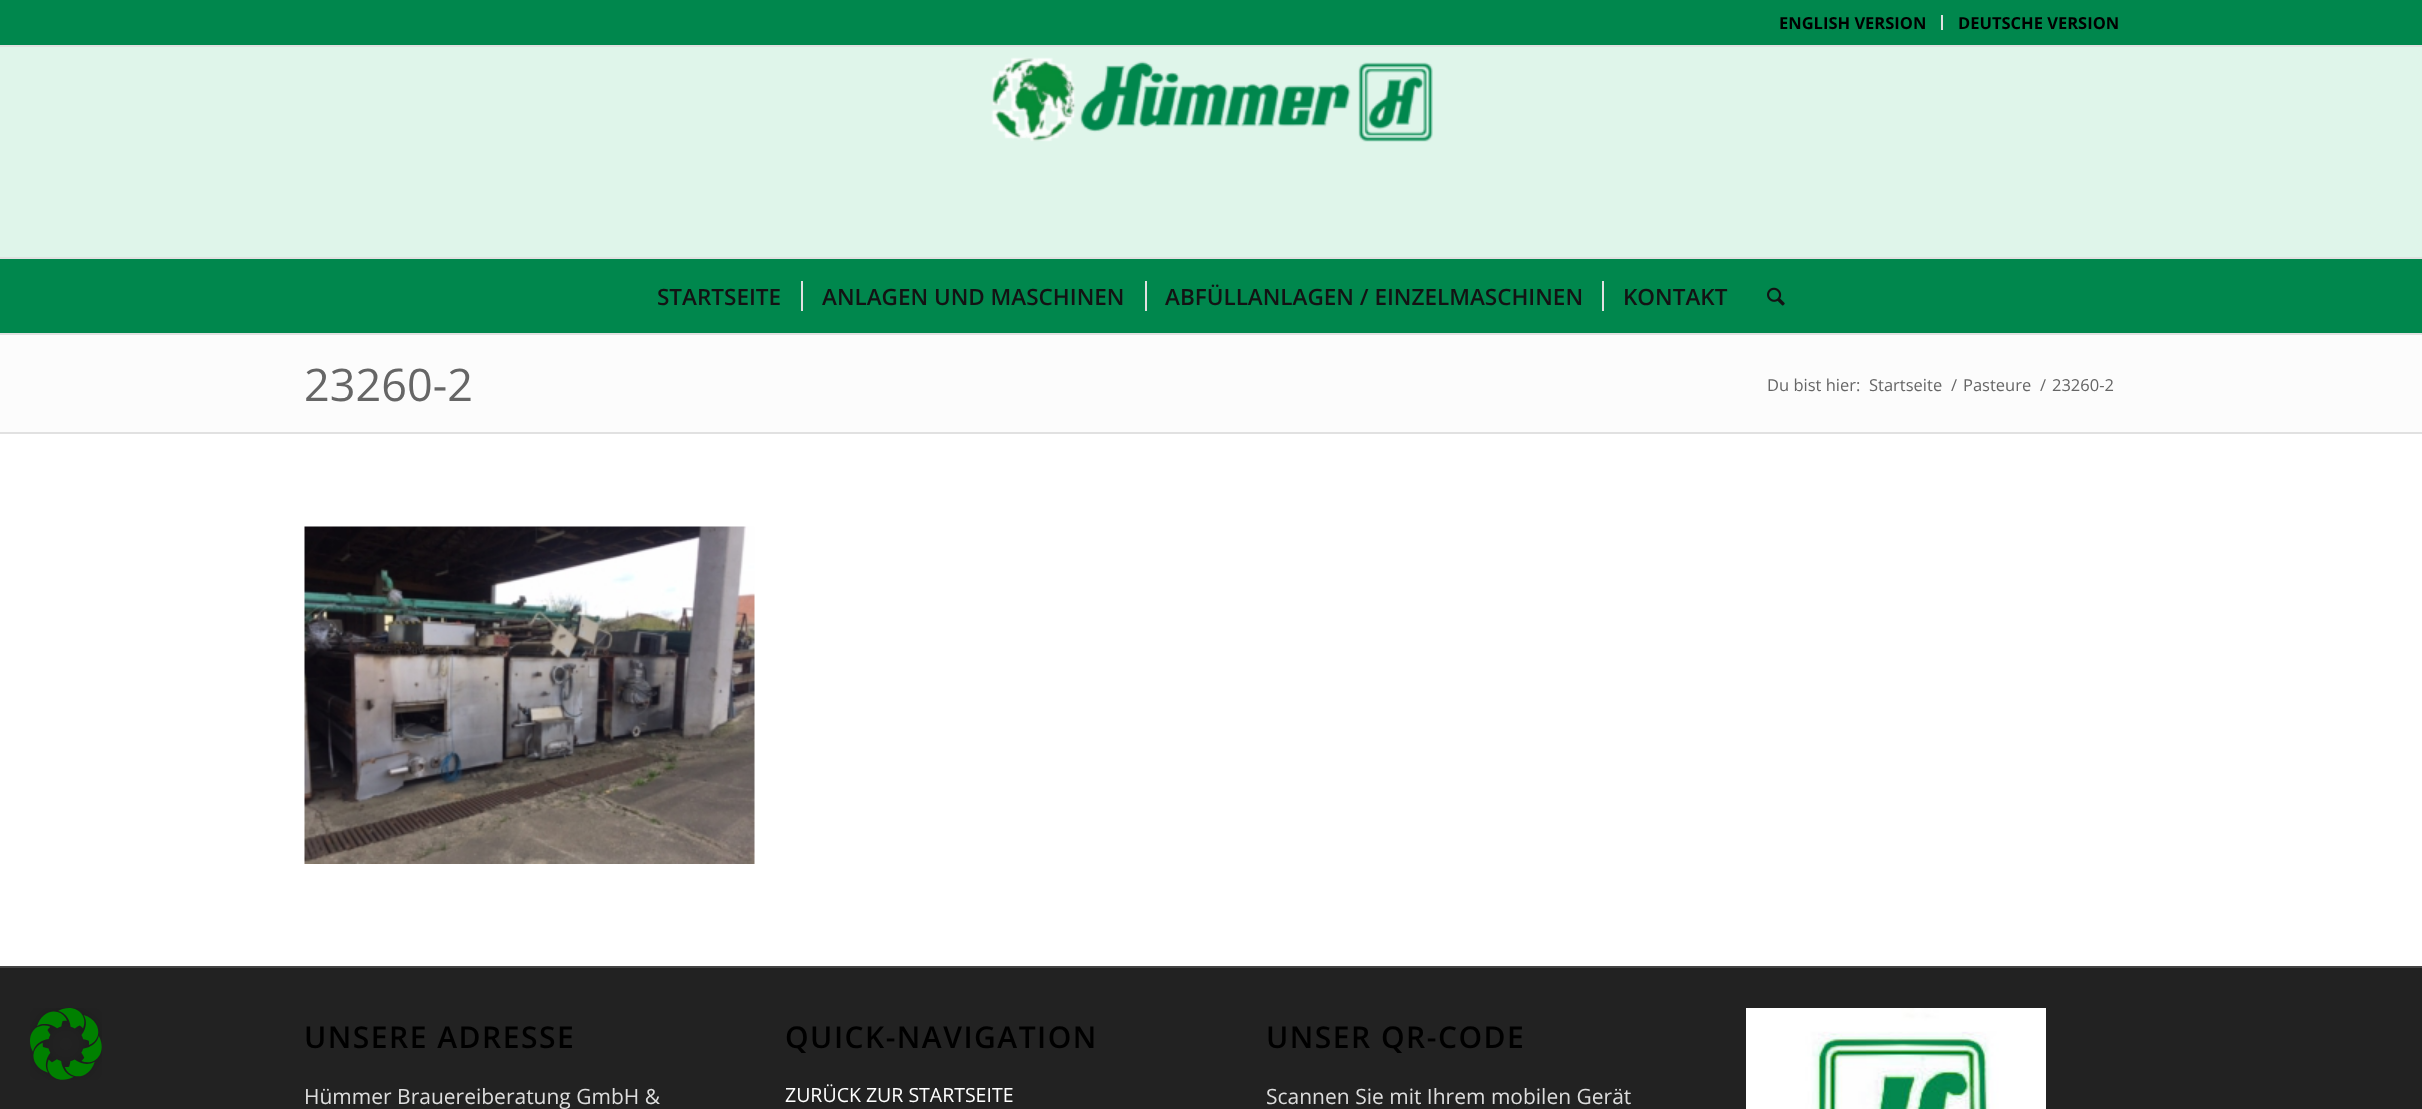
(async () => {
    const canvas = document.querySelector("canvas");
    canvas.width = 2422;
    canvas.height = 1109;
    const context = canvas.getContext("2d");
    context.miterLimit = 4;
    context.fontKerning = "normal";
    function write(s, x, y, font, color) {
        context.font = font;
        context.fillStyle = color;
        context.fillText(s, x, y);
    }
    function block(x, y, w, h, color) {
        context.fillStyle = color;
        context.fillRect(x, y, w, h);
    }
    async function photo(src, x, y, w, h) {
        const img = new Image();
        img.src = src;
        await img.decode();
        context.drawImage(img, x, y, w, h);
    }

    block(0, 0, 2422, 1109, "rgb(223, 245, 234)");
    block(0, 968, 2422, 141, "rgb(34, 34, 34)");
    await photo("media/1.png", 30, 1008, 72, 72);
    block(0, 0, 2422, 45, "rgb(0, 135, 77)");
    block(0, 45, 2422, 2, "rgb(225, 225, 225)");
    block(1941, 15, 2, 15, "rgb(225, 225, 225)");
    write("ENGLISH VERSION", 1779, 29, "bold 16.5px Open Sans", "rgb(0, 0, 0)");
    write("DEUTSCHE VERSION", 1958, 29, "bold 16.5px Open Sans", "rgb(0, 0, 0)");
    block(0, 333, 2422, 2, "rgb(225, 225, 225)");
    await photo("media/2.png", 991, 57, 442, 85);
    block(0, 259, 2422, 74, "rgb(0, 135, 77)");
    block(0, 257, 2422, 2, "rgb(225, 225, 225)");
    write("STARTSEITE", 657, 305, "600 22.5px Open Sans", "rgb(19, 19, 20)");
    write("ANLAGEN UND MASCHINEN", 822, 305, "600 22.5px Open Sans", "rgb(19, 19, 20)");
    block(801, 281, 2, 30, "rgb(225, 225, 225)");
    write("ABFÜLLANLAGEN / EINZELMASCHINEN", 1165, 305, "600 22.5px Open Sans", "rgb(19, 19, 20)");
    block(1145, 281, 2, 30, "rgb(225, 225, 225)");
    write("KONTAKT", 1623, 305, "600 22.5px Open Sans", "rgb(19, 19, 20)");
    block(1602, 281, 2, 30, "rgb(225, 225, 225)");
    await photo("media/3.png", 1767, 287, 18, 19);
    block(0, 335, 2422, 97, "rgb(252, 252, 252)");
    write("23260-2", 304, 401, "45px Open Sans", "rgb(102, 102, 102)");
    write("Du bist hier:", 1767, 391, "16.5px Open Sans", "rgb(102, 102, 102)");
    write("Startseite", 1869, 391, "16.5px Open Sans", "rgb(102, 102, 102)");
    write("/", 1951, 391, "16.5px Open Sans", "rgb(102, 102, 102)");
    write("Pasteure", 1963, 391, "16.5px Open Sans", "rgb(102, 102, 102)");
    write("/", 2040, 391, "16.5px Open Sans", "rgb(102, 102, 102)");
    write("23260-2", 2052, 391, "16.5px Open Sans", "rgb(102, 102, 102)");
    block(0, 434, 2422, 532, "rgb(255, 255, 255)");
    block(0, 432, 2422, 2, "rgb(225, 225, 225)");
    await photo("media/4.png", 304, 526, 451, 338);
    block(0, 966, 2422, 2, "rgb(68, 68, 68)");
    context.letterSpacing = "1.5px";
    write("UNSERE ADRESSE", 304, 1048, "600 30px Open Sans", "rgb(0, 0, 0)");
    context.letterSpacing = "0px";
    write("Hümmer Brauereiberatung GmbH &", 304, 1104, "21px Open Sans", "rgb(221, 221, 221)");
    context.letterSpacing = "1.5px";
    write("QUICK-NAVIGATION", 785, 1048, "600 30px Open Sans", "rgb(0, 0, 0)");
    context.letterSpacing = "0px";
    write("ZURÜCK ZUR STARTSEITE", 785, 1102, "19.5px Open Sans", "rgb(255, 255, 255)");
    context.letterSpacing = "1.5px";
    write("UNSER QR-CODE", 1266, 1048, "600 30px Open Sans", "rgb(0, 0, 0)");
    context.letterSpacing = "0px";
    write("Scannen Sie mit Ihrem mobilen Gerät", 1266, 1104, "21px Open Sans", "rgb(221, 221, 221)");
    await photo("media/5.png", 1746, 1008, 300, 101);
})();
